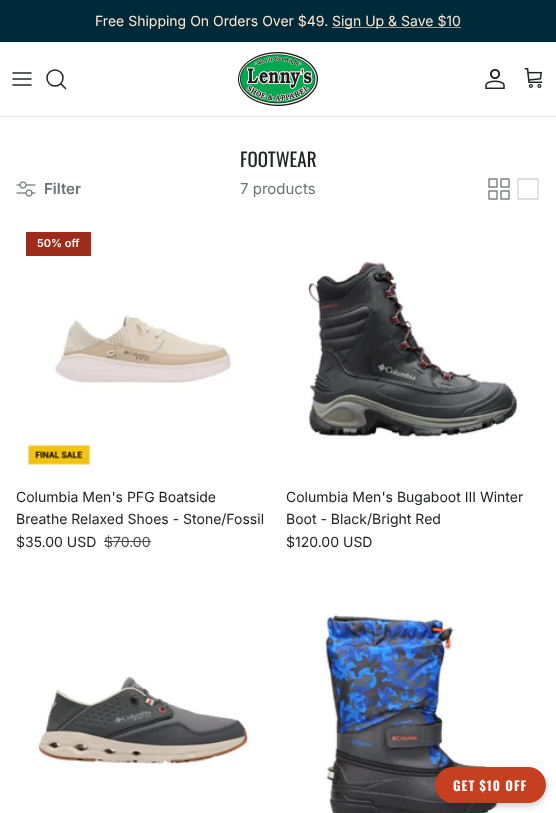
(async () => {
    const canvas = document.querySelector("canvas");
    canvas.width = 556;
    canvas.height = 813;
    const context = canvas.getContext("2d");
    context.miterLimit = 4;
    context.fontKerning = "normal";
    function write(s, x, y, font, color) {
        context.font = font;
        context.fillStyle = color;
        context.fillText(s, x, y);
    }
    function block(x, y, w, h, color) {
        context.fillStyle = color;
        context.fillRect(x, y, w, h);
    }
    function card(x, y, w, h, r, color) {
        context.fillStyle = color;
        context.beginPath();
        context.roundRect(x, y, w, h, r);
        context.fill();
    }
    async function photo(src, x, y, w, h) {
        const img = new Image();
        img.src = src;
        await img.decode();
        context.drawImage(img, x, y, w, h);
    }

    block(0, 0, 556, 813, "rgb(255, 255, 255)");
    block(0, 0, 556, 42, "rgb(0, 42, 57)");
    write("Free Shipping On Orders Over $49.", 95, 26, "14px Inter", "rgb(255, 234, 213)");
    block(332, 27, 129, 1, "rgb(153, 157, 151)");
    write("Sign Up & Save $10", 332, 26, "14px Inter", "rgb(255, 234, 213)");
    block(0, 116, 556, 1, "rgb(226, 226, 226)");
    await photo("media/1.png", 12, 72, 20, 14);
    context.beginPath();
    context.arc(55, 78, 8, 0, Math.PI * 2);
    context.strokeStyle = "rgb(32, 34, 35)";
    context.lineWidth = 1.5;
    context.stroke();
    context.beginPath();
    context.moveTo(61, 84);
    context.lineTo(65.5, 88.5);
    context.lineCap = "square";
    context.stroke();
    await photo("media/2.png", 238, 52, 80, 54);
    await photo("media/3.png", 485, 69, 20, 20);
    await photo("media/4.png", 524, 68, 19, 20);
    write("FOOTWEAR", 240, 167, "19px Oswald", "rgb(32, 34, 35)");
    await photo("media/5.png", 16, 181, 20, 16);
    write("Filter", 44, 194, "600 15px Inter", "rgb(109, 113, 117)");
    write("7 products", 240, 194, "15px Inter", "rgb(109, 113, 117)");
    await photo("media/6.png", 488, 178, 22, 22);
    context.beginPath();
    context.moveTo(518, 179);
    context.lineTo(538, 179);
    context.lineTo(538, 199);
    context.lineTo(518, 199);
    context.lineTo(518, 179);
    context.strokeStyle = "rgb(211, 212, 214)";
    context.lineWidth = 1.3;
    context.lineCap = "round";
    context.lineJoin = "round";
    context.stroke();
    block(26, 232, 65, 24, "rgb(157, 44, 27)");
    write("50% off", 37, 247, "600 11px Inter", "rgb(255, 255, 255)");
    await photo("media/7.png", 26, 315, 205, 151);
    write("Columbia Men's PFG Boatside", 16, 502, "14px Inter", "rgb(32, 34, 35)");
    write("Breathe Relaxed Shoes - Stone/Fossil", 16, 524, "14px Inter", "rgb(32, 34, 35)");
    write("$35.00 USD", 16, 547, "14px Inter", "rgb(32, 34, 35)");
    write("$70.00", 104, 547, "14px Inter", "rgb(77, 78, 79)");
    block(104, 541, 47, 1, "rgb(77, 78, 79)");
    await photo("media/8.png", 307, 260, 211, 179);
    write("Columbia Men's Bugaboot III Winter", 286, 502, "14px Inter", "rgb(32, 34, 35)");
    write("Boot - Black/Bright Red", 286, 524, "14px Inter", "rgb(32, 34, 35)");
    write("$120.00 USD", 286, 547, "14px Inter", "rgb(32, 34, 35)");
    await photo("media/9.png", 37, 676, 212, 92);
    await photo("media/10.png", 323, 611, 180, 202);
    context.fillStyle = "rgba(0, 0, 0, 0.2)";
    context.filter = "blur(3px)";
    context.beginPath();
    context.roundRect(435, 770, 111, 36, 18);
    context.fill();
    context.filter = "none";
    card(435, 767, 111, 36, 18, "rgb(198, 63, 33)");
    context.letterSpacing = "1px";
    write("GET $10 OFF", 453, 791, "bold 13px Oswald", "rgb(255, 255, 255)");
})();
